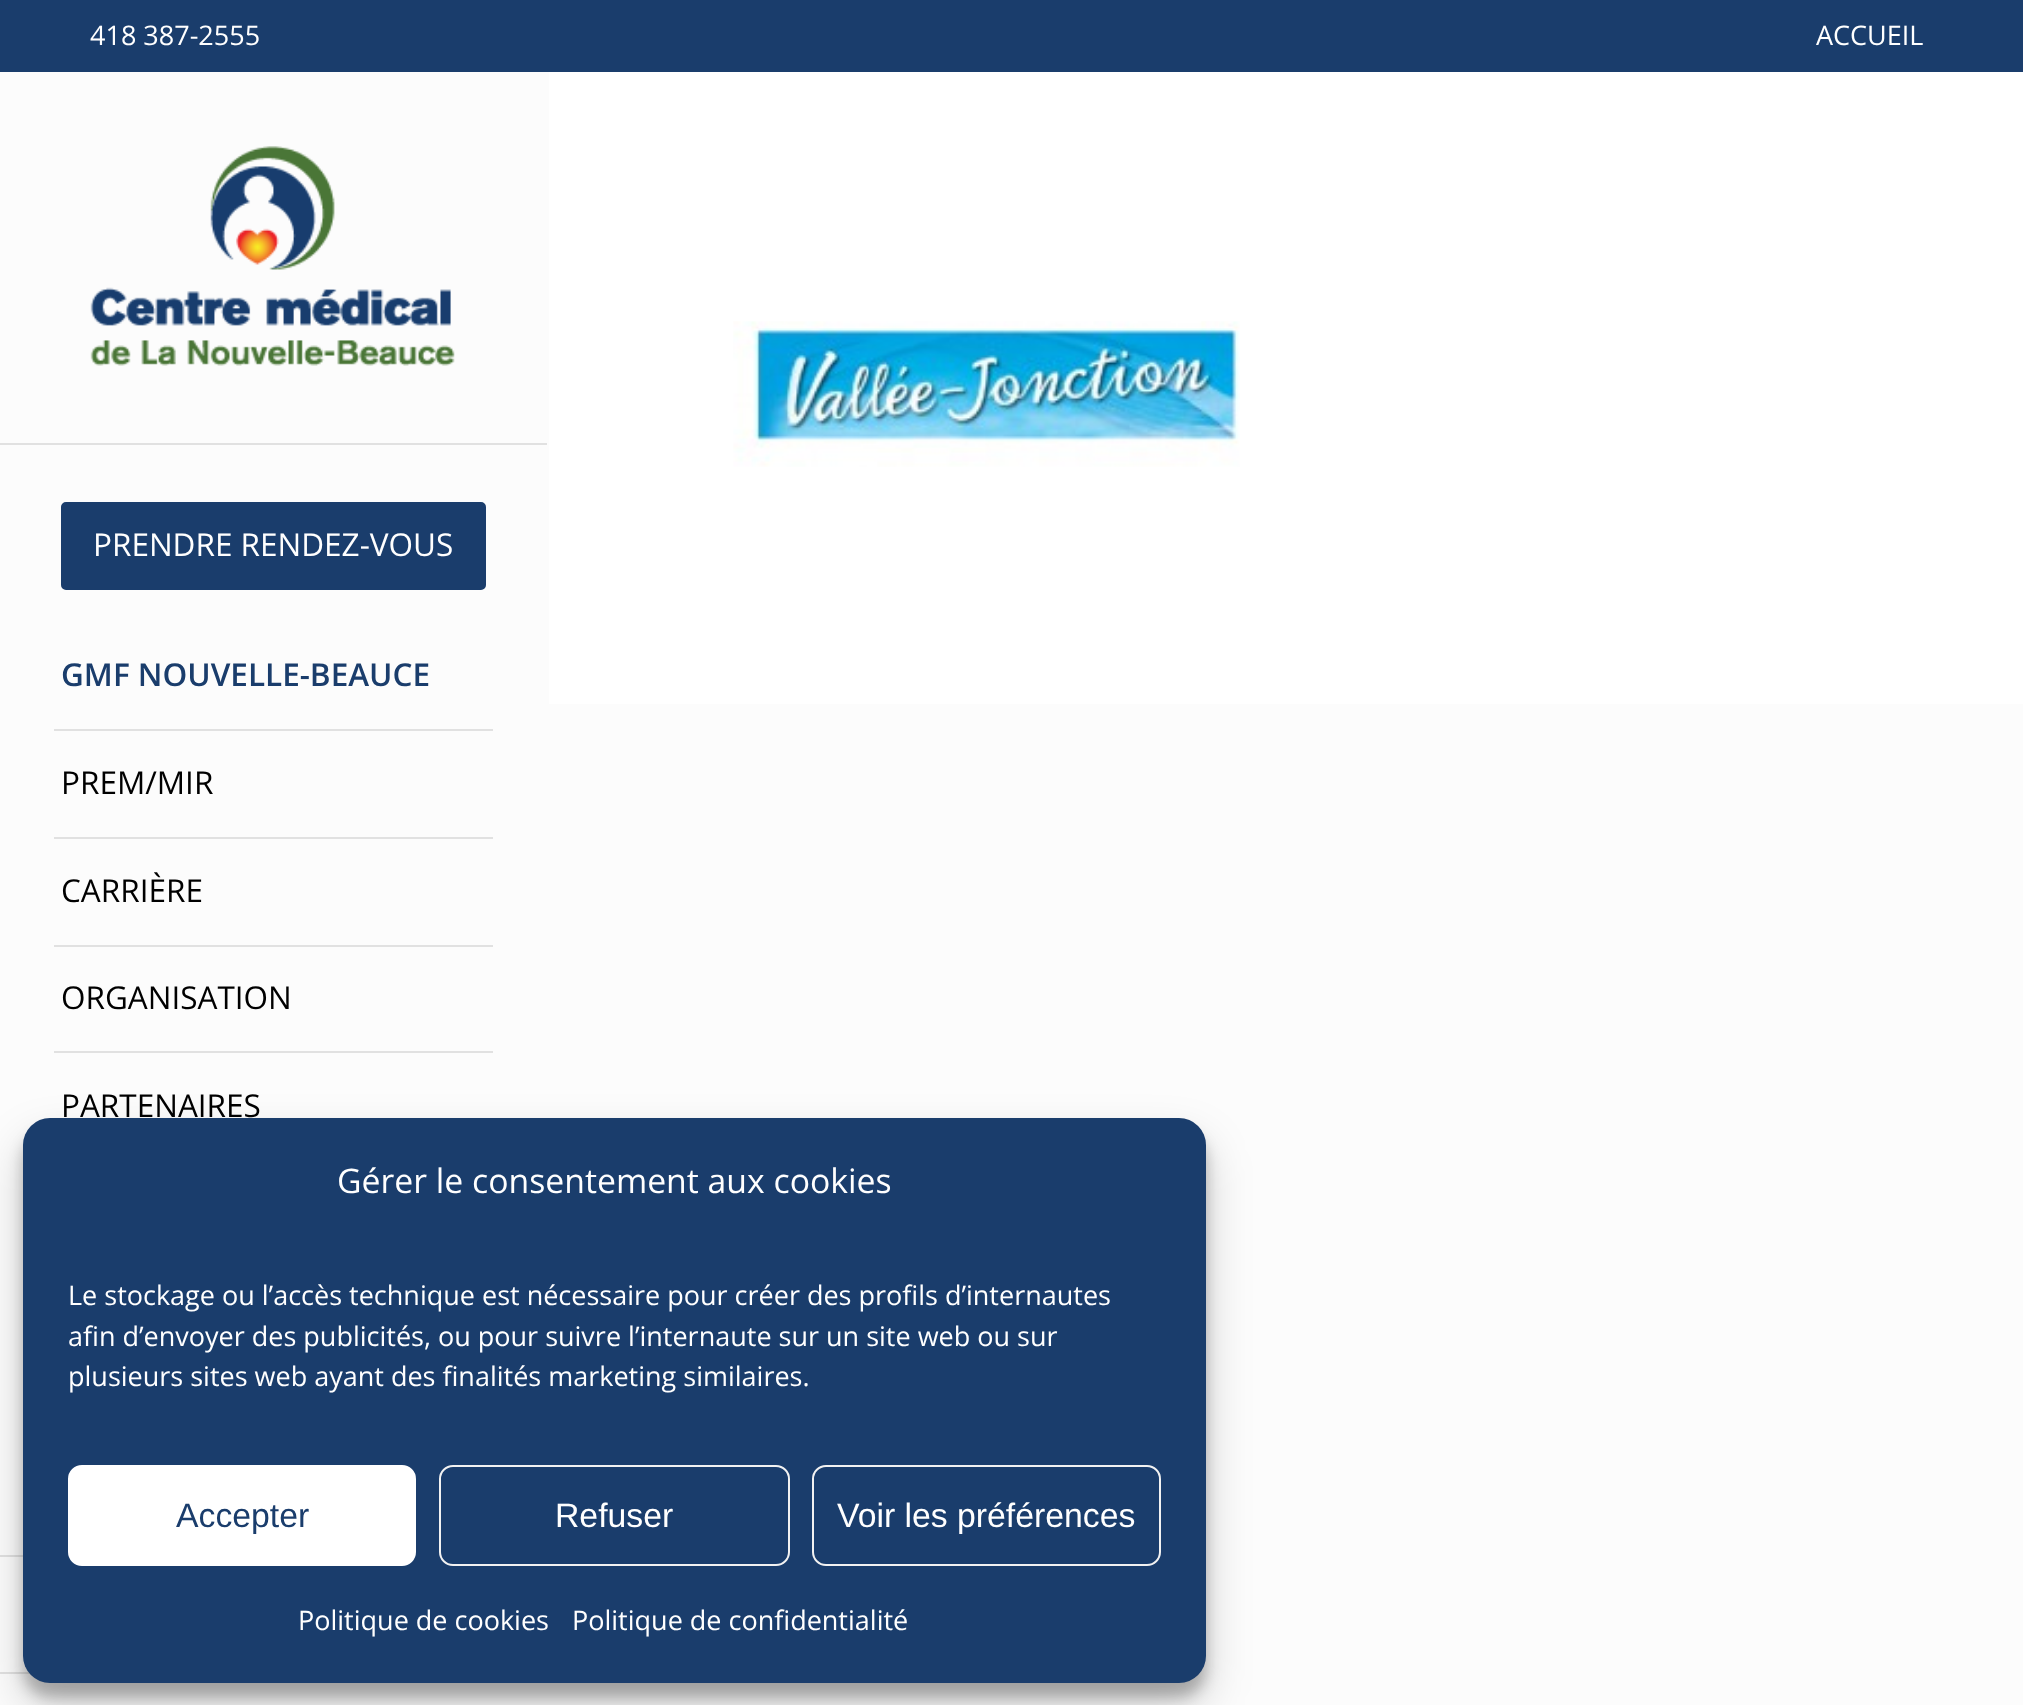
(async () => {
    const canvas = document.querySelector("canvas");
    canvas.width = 2023;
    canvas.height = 1705;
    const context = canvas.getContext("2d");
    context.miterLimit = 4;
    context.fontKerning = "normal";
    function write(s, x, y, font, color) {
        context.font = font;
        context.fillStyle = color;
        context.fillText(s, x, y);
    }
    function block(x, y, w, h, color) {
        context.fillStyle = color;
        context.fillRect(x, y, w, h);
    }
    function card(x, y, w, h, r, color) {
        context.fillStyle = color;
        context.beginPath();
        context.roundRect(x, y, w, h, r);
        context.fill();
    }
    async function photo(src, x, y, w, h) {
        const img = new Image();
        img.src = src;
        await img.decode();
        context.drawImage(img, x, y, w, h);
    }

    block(0, 0, 2023, 1705, "rgb(252, 252, 252)");
    block(0, 0, 2023, 72, "rgb(26, 61, 108)");
    write("418 387-2555", 90, 45, "27px Open Sans", "rgb(255, 255, 255)");
    write("ACCUEIL", 1816, 45, "27px Open Sans", "rgb(255, 255, 255)");
    block(549, 72, 1474, 632, "rgb(255, 255, 255)");
    await photo("media/1.png", 733, 321, 507, 146);
    block(0, 443, 547, 2, "rgb(225, 225, 225)");
    await photo("media/2.png", 90, 146, 365, 220);
    context.fillStyle = "rgb(26, 61, 108)";
    context.beginPath();
    context.roundRect(63.5, 504.5, 420, 83, 2.5);
    context.fill();
    context.strokeStyle = "rgb(26, 61, 108)";
    context.lineWidth = 5;
    context.stroke();
    write("PRENDRE RENDEZ-VOUS", 93, 556, "31.5px Open Sans", "rgb(255, 255, 255)");
    block(54, 729, 439, 2, "rgb(225, 225, 225)");
    write("GMF NOUVELLE-BEAUCE", 61, 686, "600 31.5px Open Sans", "rgb(26, 61, 108)");
    block(54, 837, 439, 2, "rgb(225, 225, 225)");
    write("PREM/MIR", 61, 794, "31.5px Open Sans", "rgb(0, 0, 0)");
    block(54, 945, 439, 2, "rgb(225, 225, 225)");
    write("CARRIÈRE", 61, 902, "31.5px Open Sans", "rgb(0, 0, 0)");
    block(54, 1051, 439, 2, "rgb(225, 225, 225)");
    write("ORGANISATION", 61, 1009, "31.5px Open Sans", "rgb(0, 0, 0)");
    write("PARTENAIRES", 61, 1117, "31.5px Open Sans", "rgb(0, 0, 0)");
    block(0, 1555, 23, 2, "rgb(225, 225, 225)");
    block(0, 1672, 30, 2, "rgb(225, 225, 225)");
    context.fillStyle = "rgba(0, 0, 0, 0.23)";
    context.filter = "blur(7px)";
    context.beginPath();
    context.roundRect(23, 1132, 1183, 565, 27);
    context.fill();
    context.filter = "none";
    context.fillStyle = "rgba(0, 0, 0, 0.19)";
    context.filter = "blur(22.5px)";
    context.beginPath();
    context.roundRect(23, 1141, 1183, 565, 27);
    context.fill();
    context.filter = "none";
    card(23, 1118, 1183, 565, 27, "rgb(26, 61, 108)");
    write("Gérer le consentement aux cookies", 337, 1193, "33.75px Open Sans", "rgb(255, 255, 255)");
    write("Le stockage ou l’accès technique est nécessaire pour créer des profils d’internautes", 68, 1305, "27px Open Sans", "rgb(255, 255, 255)");
    write("afin d’envoyer des publicités, ou pour suivre l’internaute sur un site web ou sur", 68, 1346, "27px Open Sans", "rgb(255, 255, 255)");
    write("plusieurs sites web ayant des finalités marketing similaires.", 68, 1386, "27px Open Sans", "rgb(255, 255, 255)");
    context.beginPath();
    context.roundRect(69, 1466, 346, 99, 13);
    context.fill();
    context.strokeStyle = "rgb(255, 255, 255)";
    context.lineWidth = 2;
    context.stroke();
    write("Accepter", 176, 1527, "33.75px Liberation Sans", "rgb(26, 61, 108)");
    context.beginPath();
    context.roundRect(440, 1466, 349, 99, 13);
    context.strokeStyle = "rgb(242, 242, 242)";
    context.stroke();
    write("Refuser", 555, 1527, "33.75px Liberation Sans", "rgb(255, 255, 255)");
    context.beginPath();
    context.roundRect(813, 1466, 347, 99, 13);
    context.stroke();
    write("Voir les préférences", 837, 1527, "33.75px Liberation Sans", "rgb(255, 255, 255)");
    write("Politique de cookies", 298, 1630, "27px Open Sans", "rgb(255, 255, 255)");
    write("Politique de confidentialité", 572, 1630, "27px Open Sans", "rgb(255, 255, 255)");
})();
